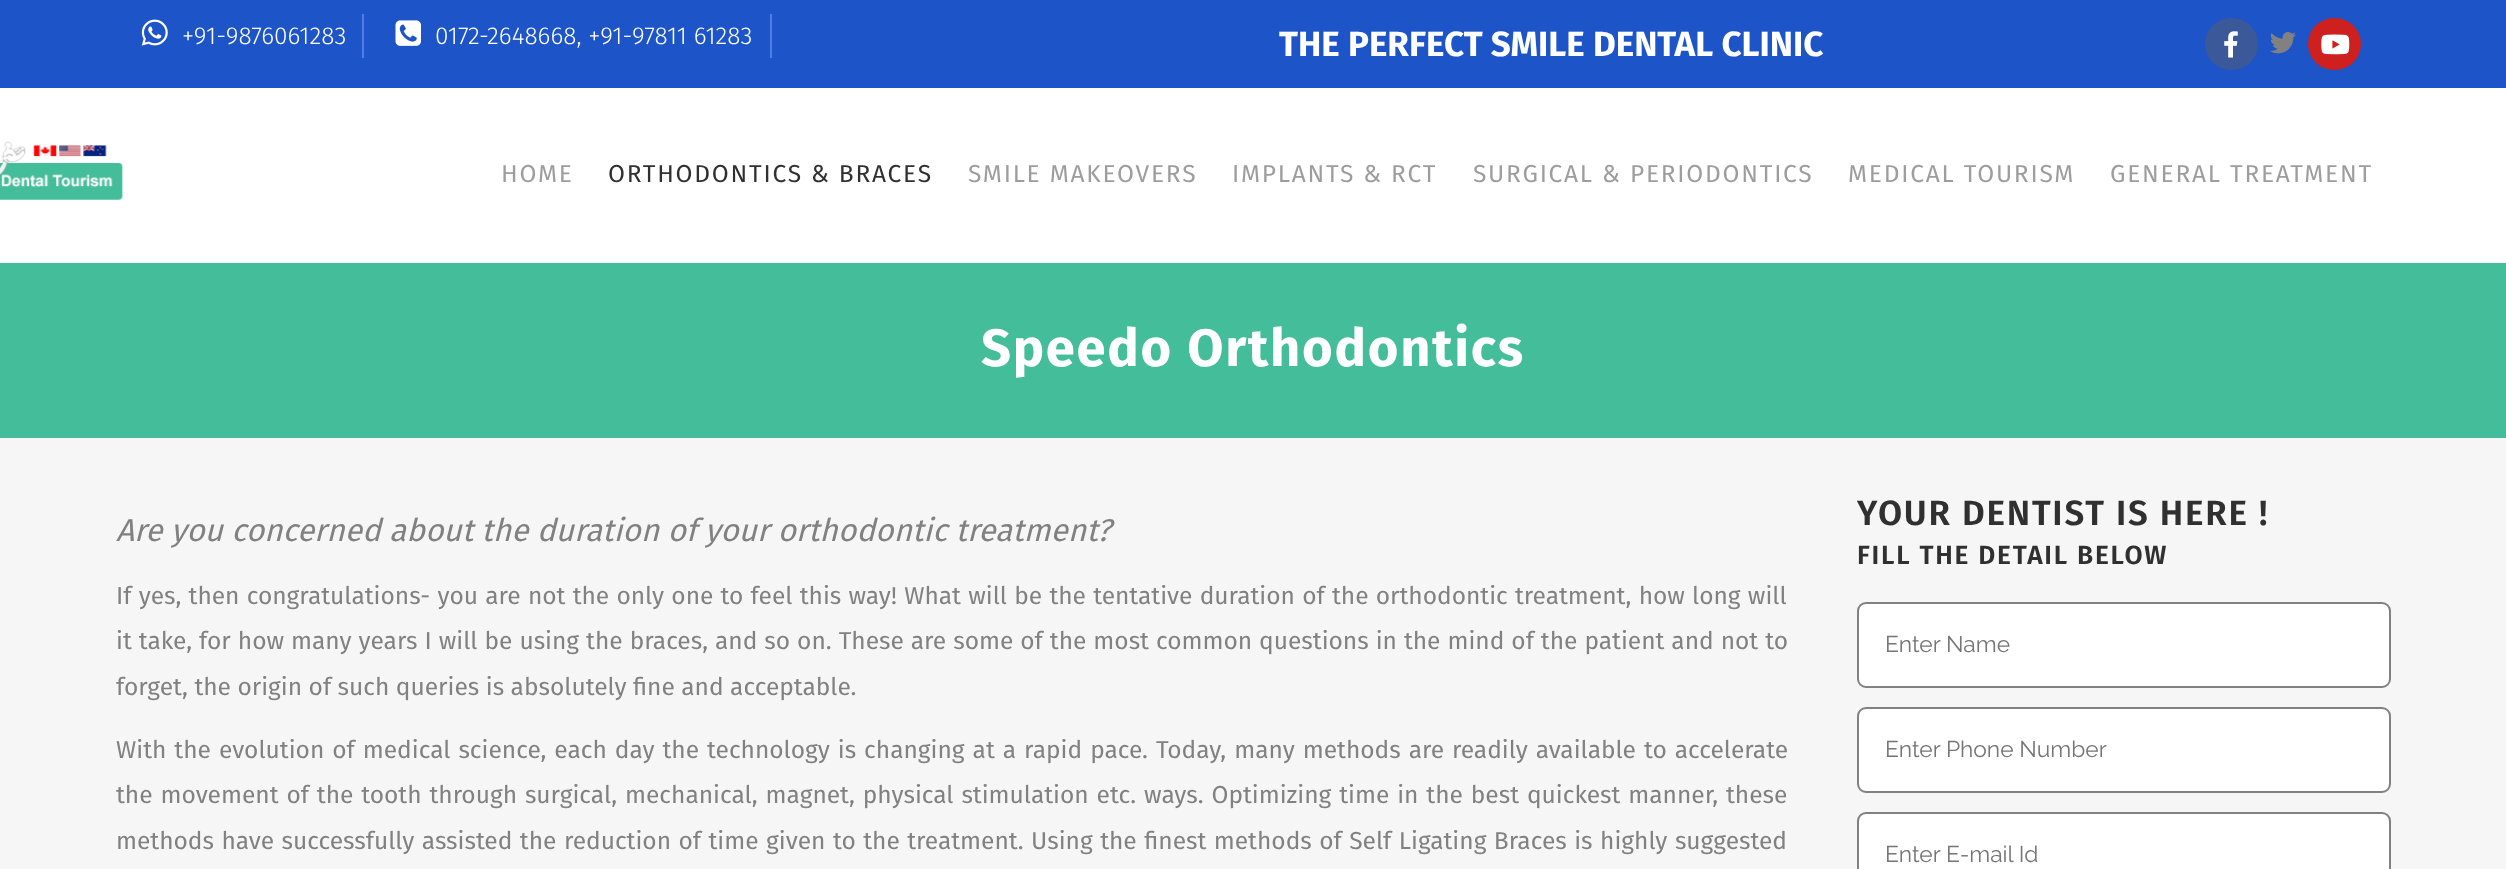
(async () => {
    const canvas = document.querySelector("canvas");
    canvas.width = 2506;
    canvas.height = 869;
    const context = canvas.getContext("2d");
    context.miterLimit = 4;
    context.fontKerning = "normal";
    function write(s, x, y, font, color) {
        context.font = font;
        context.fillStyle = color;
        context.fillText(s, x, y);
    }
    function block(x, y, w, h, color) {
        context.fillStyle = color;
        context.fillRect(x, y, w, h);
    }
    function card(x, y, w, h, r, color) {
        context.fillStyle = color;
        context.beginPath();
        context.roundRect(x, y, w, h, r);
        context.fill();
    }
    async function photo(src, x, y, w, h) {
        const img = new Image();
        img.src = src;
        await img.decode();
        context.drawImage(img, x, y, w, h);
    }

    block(0, 0, 2506, 869, "rgb(246, 246, 246)");
    block(0, 0, 2506, 88, "rgb(29, 84, 200)");
    await photo("media/1.png", 141, 19, 27, 27);
    write("+91-9876061283", 182, 44, "300 24.5px Fira Sans", "rgb(255, 255, 255)");
    block(362, 14, 2, 44, "rgb(78, 126, 228)");
    await photo("media/2.png", 395, 20, 26, 26);
    write("0172-2648668, +91-97811 61283", 435, 44, "300 24.5px Fira Sans", "rgb(255, 255, 255)");
    block(770, 14, 2, 44, "rgb(78, 126, 228)");
    write("THE PERFECT SMILE DENTAL CLINIC", 1279, 56, "bold 35px Fira Sans", "rgb(255, 255, 255)");
    card(2205, 18, 53, 52, 26, "rgb(59, 89, 152)");
    await photo("media/3.png", 2224, 31, 14, 27);
    await photo("media/4.png", 2270, 32, 26, 22);
    card(2308, 18, 53, 52, 26, "rgb(205, 32, 31)");
    await photo("media/5.png", 2321, 34, 29, 21);
    block(0, 88, 2506, 175, "rgb(255, 255, 255)");
    await photo("media/6.png", 0, 141, 123, 59);
    context.letterSpacing = "1.75px";
    write("HOME", 501, 182, "24.5px Fira Sans", "rgb(157, 157, 157)");
    write("ORTHODONTICS & BRACES", 608, 182, "24.5px Fira Sans", "rgb(48, 48, 48)");
    write("SMILE MAKEOVERS", 968, 182, "24.5px Fira Sans", "rgb(157, 157, 157)");
    write("IMPLANTS & RCT", 1232, 182, "24.5px Fira Sans", "rgb(157, 157, 157)");
    write("SURGICAL & PERIODONTICS", 1473, 182, "24.5px Fira Sans", "rgb(157, 157, 157)");
    write("MEDICAL TOURISM", 1848, 182, "24.5px Fira Sans", "rgb(157, 157, 157)");
    write("GENERAL TREATMENT", 2110, 182, "24.5px Fira Sans", "rgb(157, 157, 157)");
    block(0, 263, 2506, 175, "rgb(68, 189, 154)");
    write("Speedo Orthodontics", 981, 366, "bold 52.5px Fira Sans", "rgb(255, 255, 255)");
    context.letterSpacing = "0px";
    write("Are you concerned about the duration of your orthodontic treatment?", 116, 541, "italic 31.5px Fira Sans", "rgb(129, 129, 129)");
    context.wordSpacing = "0.75px";
    write("If yes, then congratulations- you are not the only one to feel this way! What will be the tentative duration of the orthodontic treatment, how long will", 116, 604, "24.5px Fira Sans", "rgb(129, 129, 129)");
    context.wordSpacing = "0.5px";
    write("it take, for how many years I will be using the braces, and so on. These are some of the most common questions in the mind of the patient and not to", 116, 649, "24.5px Fira Sans", "rgb(129, 129, 129)");
    context.wordSpacing = "0px";
    write("forget, the origin of such queries is absolutely fine and acceptable.", 116, 695, "24.5px Fira Sans", "rgb(129, 129, 129)");
    context.wordSpacing = "1.5px";
    write("With the evolution of medical science, each day the technology is changing at a rapid pace. Today, many methods are readily available to accelerate", 116, 758, "24.5px Fira Sans", "rgb(129, 129, 129)");
    context.wordSpacing = "1.4px";
    write("the movement of the tooth through surgical, mechanical, magnet, physical stimulation etc. ways. Optimizing time in the best quickest manner, these", 116, 803, "24.5px Fira Sans", "rgb(129, 129, 129)");
    context.wordSpacing = "1px";
    write("methods have successfully assisted the reduction of time given to the treatment. Using the finest methods of Self Ligating Braces is highly suggested", 116, 849, "24.5px Fira Sans", "rgb(129, 129, 129)");
    context.letterSpacing = "1.75px";
    context.wordSpacing = "0px";
    write("YOUR DENTIST IS HERE !", 1857, 525, "600 35px Fira Sans", "rgb(48, 48, 48)");
    write("FILL THE DETAIL BELOW", 1857, 564, "600 26.25px Fira Sans", "rgb(48, 48, 48)");
    context.fillStyle = "rgb(255, 255, 255)";
    context.beginPath();
    context.roundRect(1858, 603, 532, 84, 8);
    context.fill();
    context.strokeStyle = "rgb(129, 129, 129)";
    context.lineWidth = 2;
    context.stroke();
    context.letterSpacing = "0px";
    write("Enter Name", 1885, 652, "100 22.75px Raleway", "rgb(117, 117, 117)");
    context.fillStyle = "rgb(255, 255, 255)";
    context.beginPath();
    context.roundRect(1858, 708, 532, 84, 8);
    context.fill();
    context.stroke();
    write("Enter Phone Number", 1885, 757, "100 22.75px Raleway", "rgb(117, 117, 117)");
    context.fillStyle = "rgb(255, 255, 255)";
    context.beginPath();
    context.roundRect(1858, 813, 532, 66, 8);
    context.fill();
    context.stroke();
    write("Enter E-mail Id", 1885, 862, "100 22.75px Raleway", "rgb(117, 117, 117)");
})();
